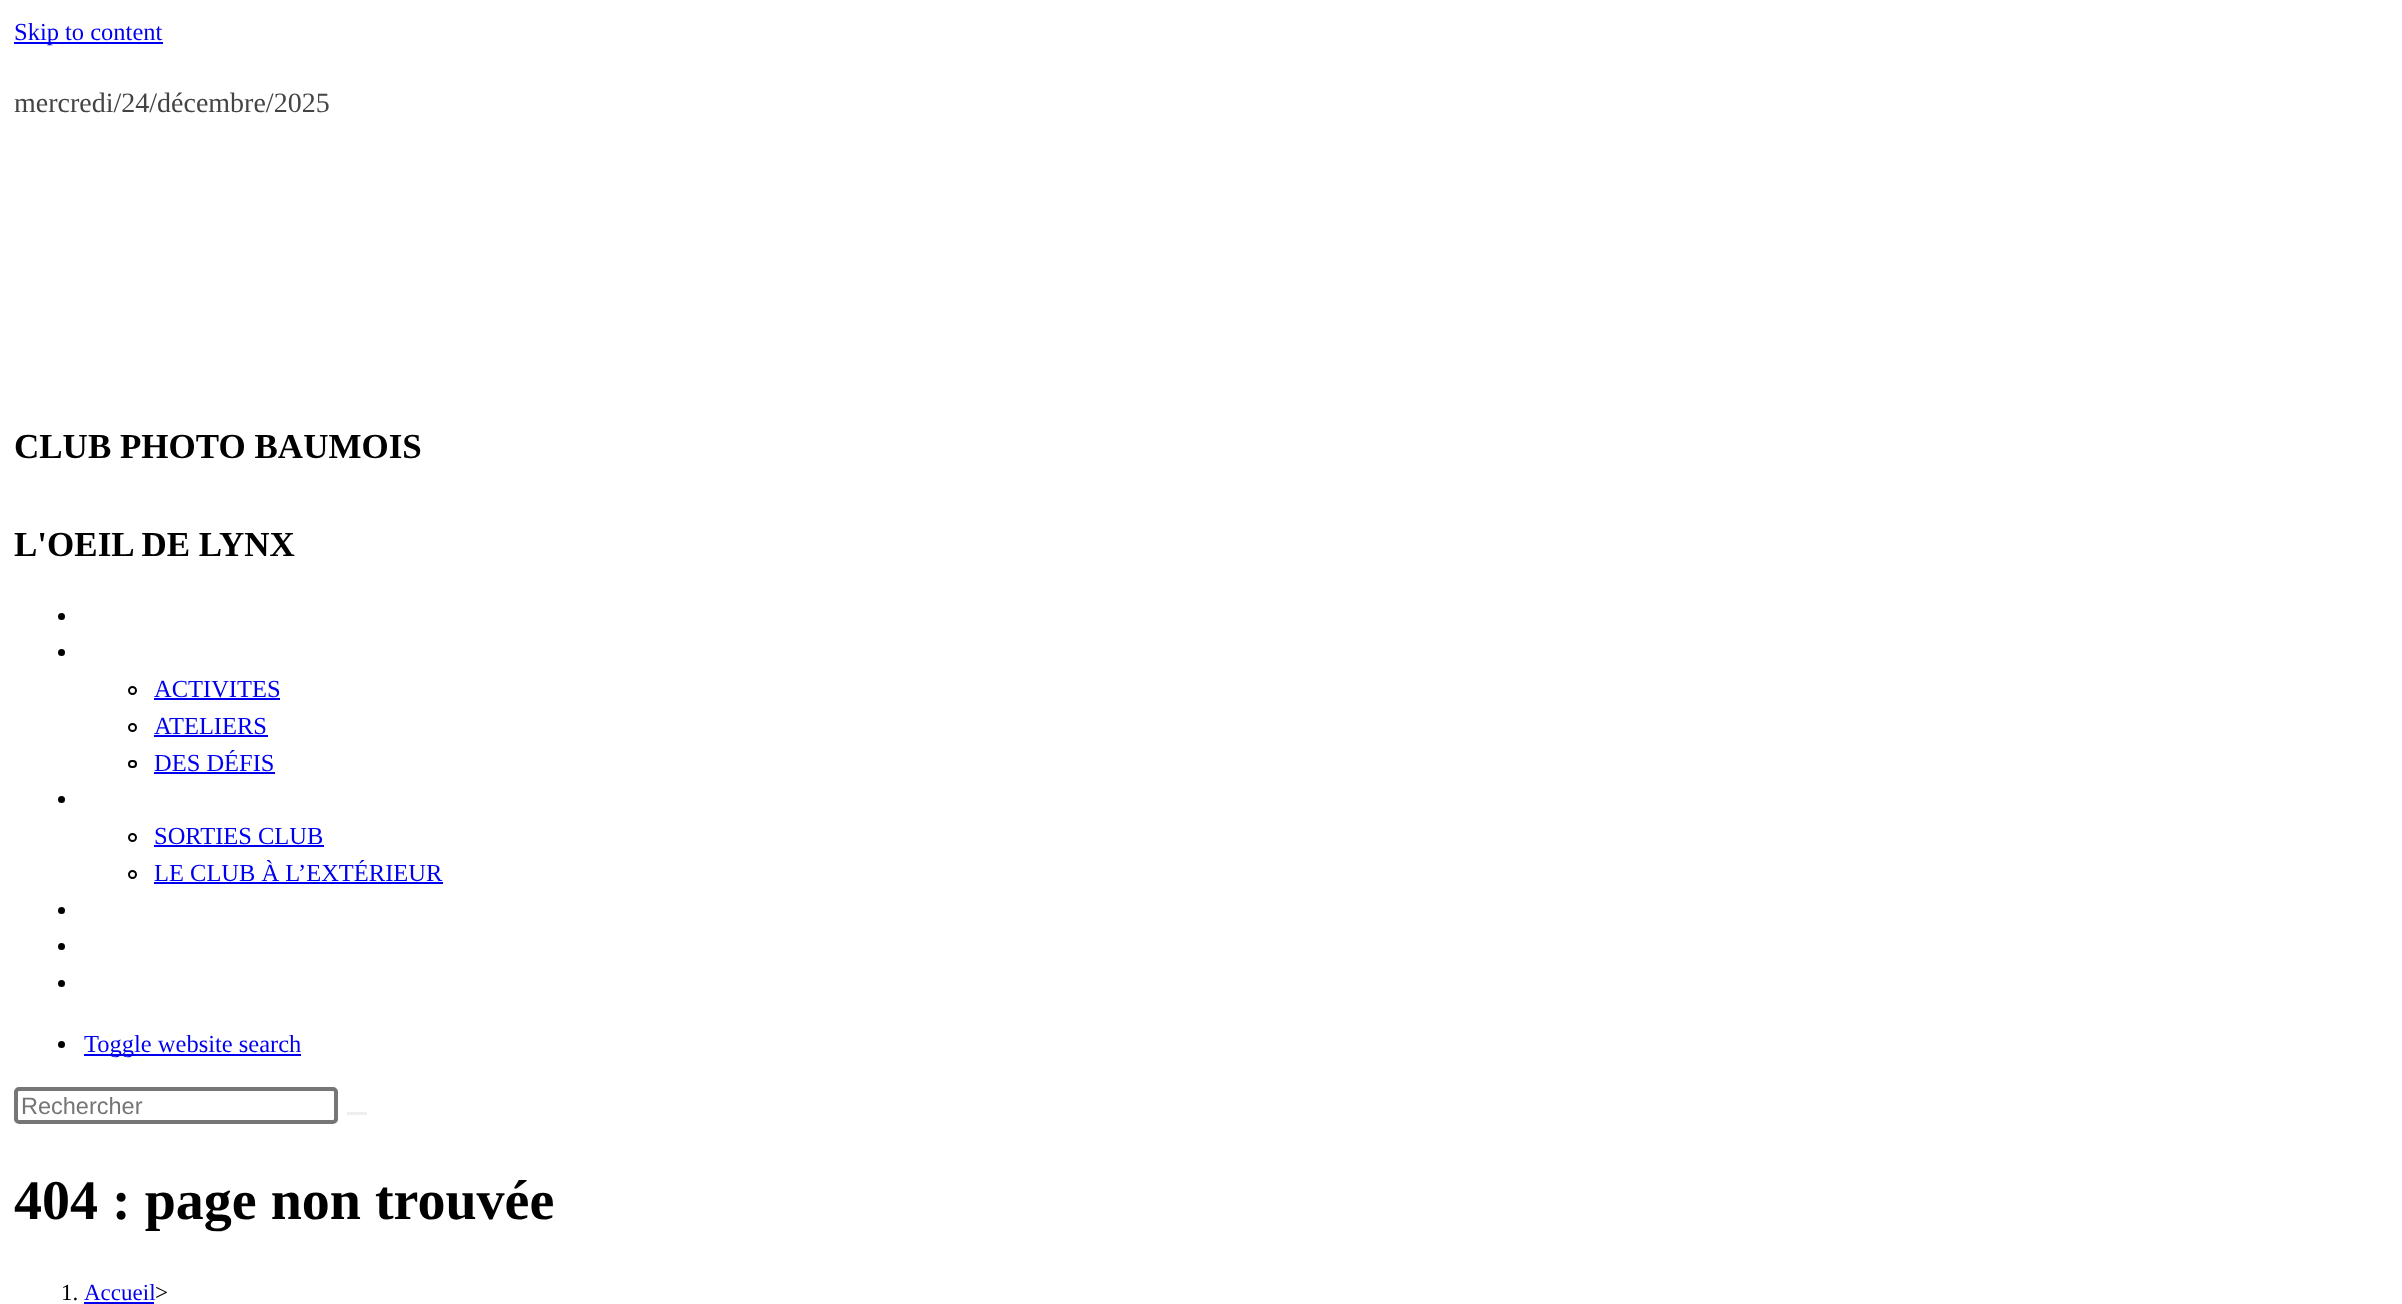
(async () => {
    const canvas = document.querySelector("canvas");
    canvas.width = 2402;
    canvas.height = 1304;
    const context = canvas.getContext("2d");
    context.miterLimit = 4;
    context.fontKerning = "normal";
    function write(s, x, y, font, color) {
        context.font = font;
        context.fillStyle = color;
        context.fillText(s, x, y);
    }
    function block(x, y, w, h, color) {
        context.fillStyle = color;
        context.fillRect(x, y, w, h);
    }

    block(0, 0, 2402, 1304, "rgb(255, 255, 255)");
    block(14, 42, 149, 2, "rgb(0, 0, 238)");
    write("Skip to content", 14, 40, "24.5px Liberation Serif", "rgb(0, 0, 238)");
    write("mercredi/24/décembre/2025", 14, 112, "28px Liberation Serif", "rgb(68, 68, 68)");
    write("CLUB PHOTO BAUMOIS", 14, 458, "bold 35px Liberation Serif", "rgb(0, 0, 0)");
    write("L'OEIL DE LYNX", 14, 556, "bold 35px Liberation Serif", "rgb(0, 0, 0)");
    context.beginPath();
    context.arc(61.5, 616.5, 3.5, 0, Math.PI * 2);
    context.fill();
    context.beginPath();
    context.arc(61.5, 652.5, 3.5, 0, Math.PI * 2);
    context.fill();
    context.beginPath();
    context.arc(132.5, 690.5, 3.5, 0, Math.PI * 2);
    context.strokeStyle = "rgb(0, 0, 0)";
    context.lineWidth = 2;
    context.stroke();
    write("ACTIVITES", 154, 697, "24.5px Liberation Serif", "rgb(0, 0, 238)");
    block(154, 698, 126, 2, "rgb(0, 0, 238)");
    context.beginPath();
    context.arc(132.5, 727.5, 3.5, 0, Math.PI * 2);
    context.stroke();
    write("ATELIERS", 154, 734, "24.5px Liberation Serif", "rgb(0, 0, 238)");
    block(154, 735, 114, 2, "rgb(0, 0, 238)");
    context.beginPath();
    context.roundRect(129, 761, 7, 6, 3);
    context.stroke();
    write("DES DÉFIS", 154, 771, "24.5px Liberation Serif", "rgb(0, 0, 238)");
    block(154, 772, 121, 2, "rgb(0, 0, 238)");
    context.fillStyle = "rgb(0, 0, 0)";
    context.beginPath();
    context.arc(61.5, 799.5, 3.5, 0, Math.PI * 2);
    context.fill();
    context.beginPath();
    context.arc(132.5, 837.5, 3.5, 0, Math.PI * 2);
    context.stroke();
    write("SORTIES CLUB", 154, 844, "24.5px Liberation Serif", "rgb(0, 0, 238)");
    block(154, 845, 170, 2, "rgb(0, 0, 238)");
    context.beginPath();
    context.arc(132.5, 874.5, 3.5, 0, Math.PI * 2);
    context.stroke();
    write("LE CLUB À L’EXTÉRIEUR", 154, 881, "24.5px Liberation Serif", "rgb(0, 0, 238)");
    block(154, 882, 289, 2, "rgb(0, 0, 238)");
    context.fillStyle = "rgb(0, 0, 0)";
    context.beginPath();
    context.arc(61.5, 910.5, 3.5, 0, Math.PI * 2);
    context.fill();
    context.beginPath();
    context.arc(61.5, 946.5, 3.5, 0, Math.PI * 2);
    context.fill();
    context.beginPath();
    context.arc(61.5, 983.5, 3.5, 0, Math.PI * 2);
    context.fill();
    context.beginPath();
    context.arc(61.5, 1044.5, 3.5, 0, Math.PI * 2);
    context.fill();
    block(84, 1054, 217, 2, "rgb(0, 0, 238)");
    write("Toggle website search", 84, 1052, "24.5px Liberation Serif", "rgb(0, 0, 238)");
    context.beginPath();
    context.roundRect(16, 1089, 320, 33, 3);
    context.strokeStyle = "rgb(118, 118, 118)";
    context.lineWidth = 4;
    context.stroke();
    write("Rechercher", 21, 1114, "23.5px Liberation Sans", "rgb(117, 117, 117)");
    context.fillStyle = "rgb(239, 239, 239)";
    context.beginPath();
    context.rect(346, 1111, 22, 5);
    context.fill();
    context.strokeStyle = "rgb(255, 255, 255)";
    context.lineWidth = 2;
    context.stroke();
    write("404 : page non trouvée", 14, 1219, "bold 56px Liberation Serif", "rgb(0, 0, 0)");
    write("1.", 61, 1300, "23px Liberation Serif", "rgb(0, 0, 0)");
    write("Accueil", 84, 1300, "23px Liberation Serif", "rgb(0, 0, 238)");
    block(84, 1302, 70, 2, "rgb(0, 0, 238)");
    write(">", 155, 1300, "23px Liberation Serif", "rgb(0, 0, 0)");
})();
